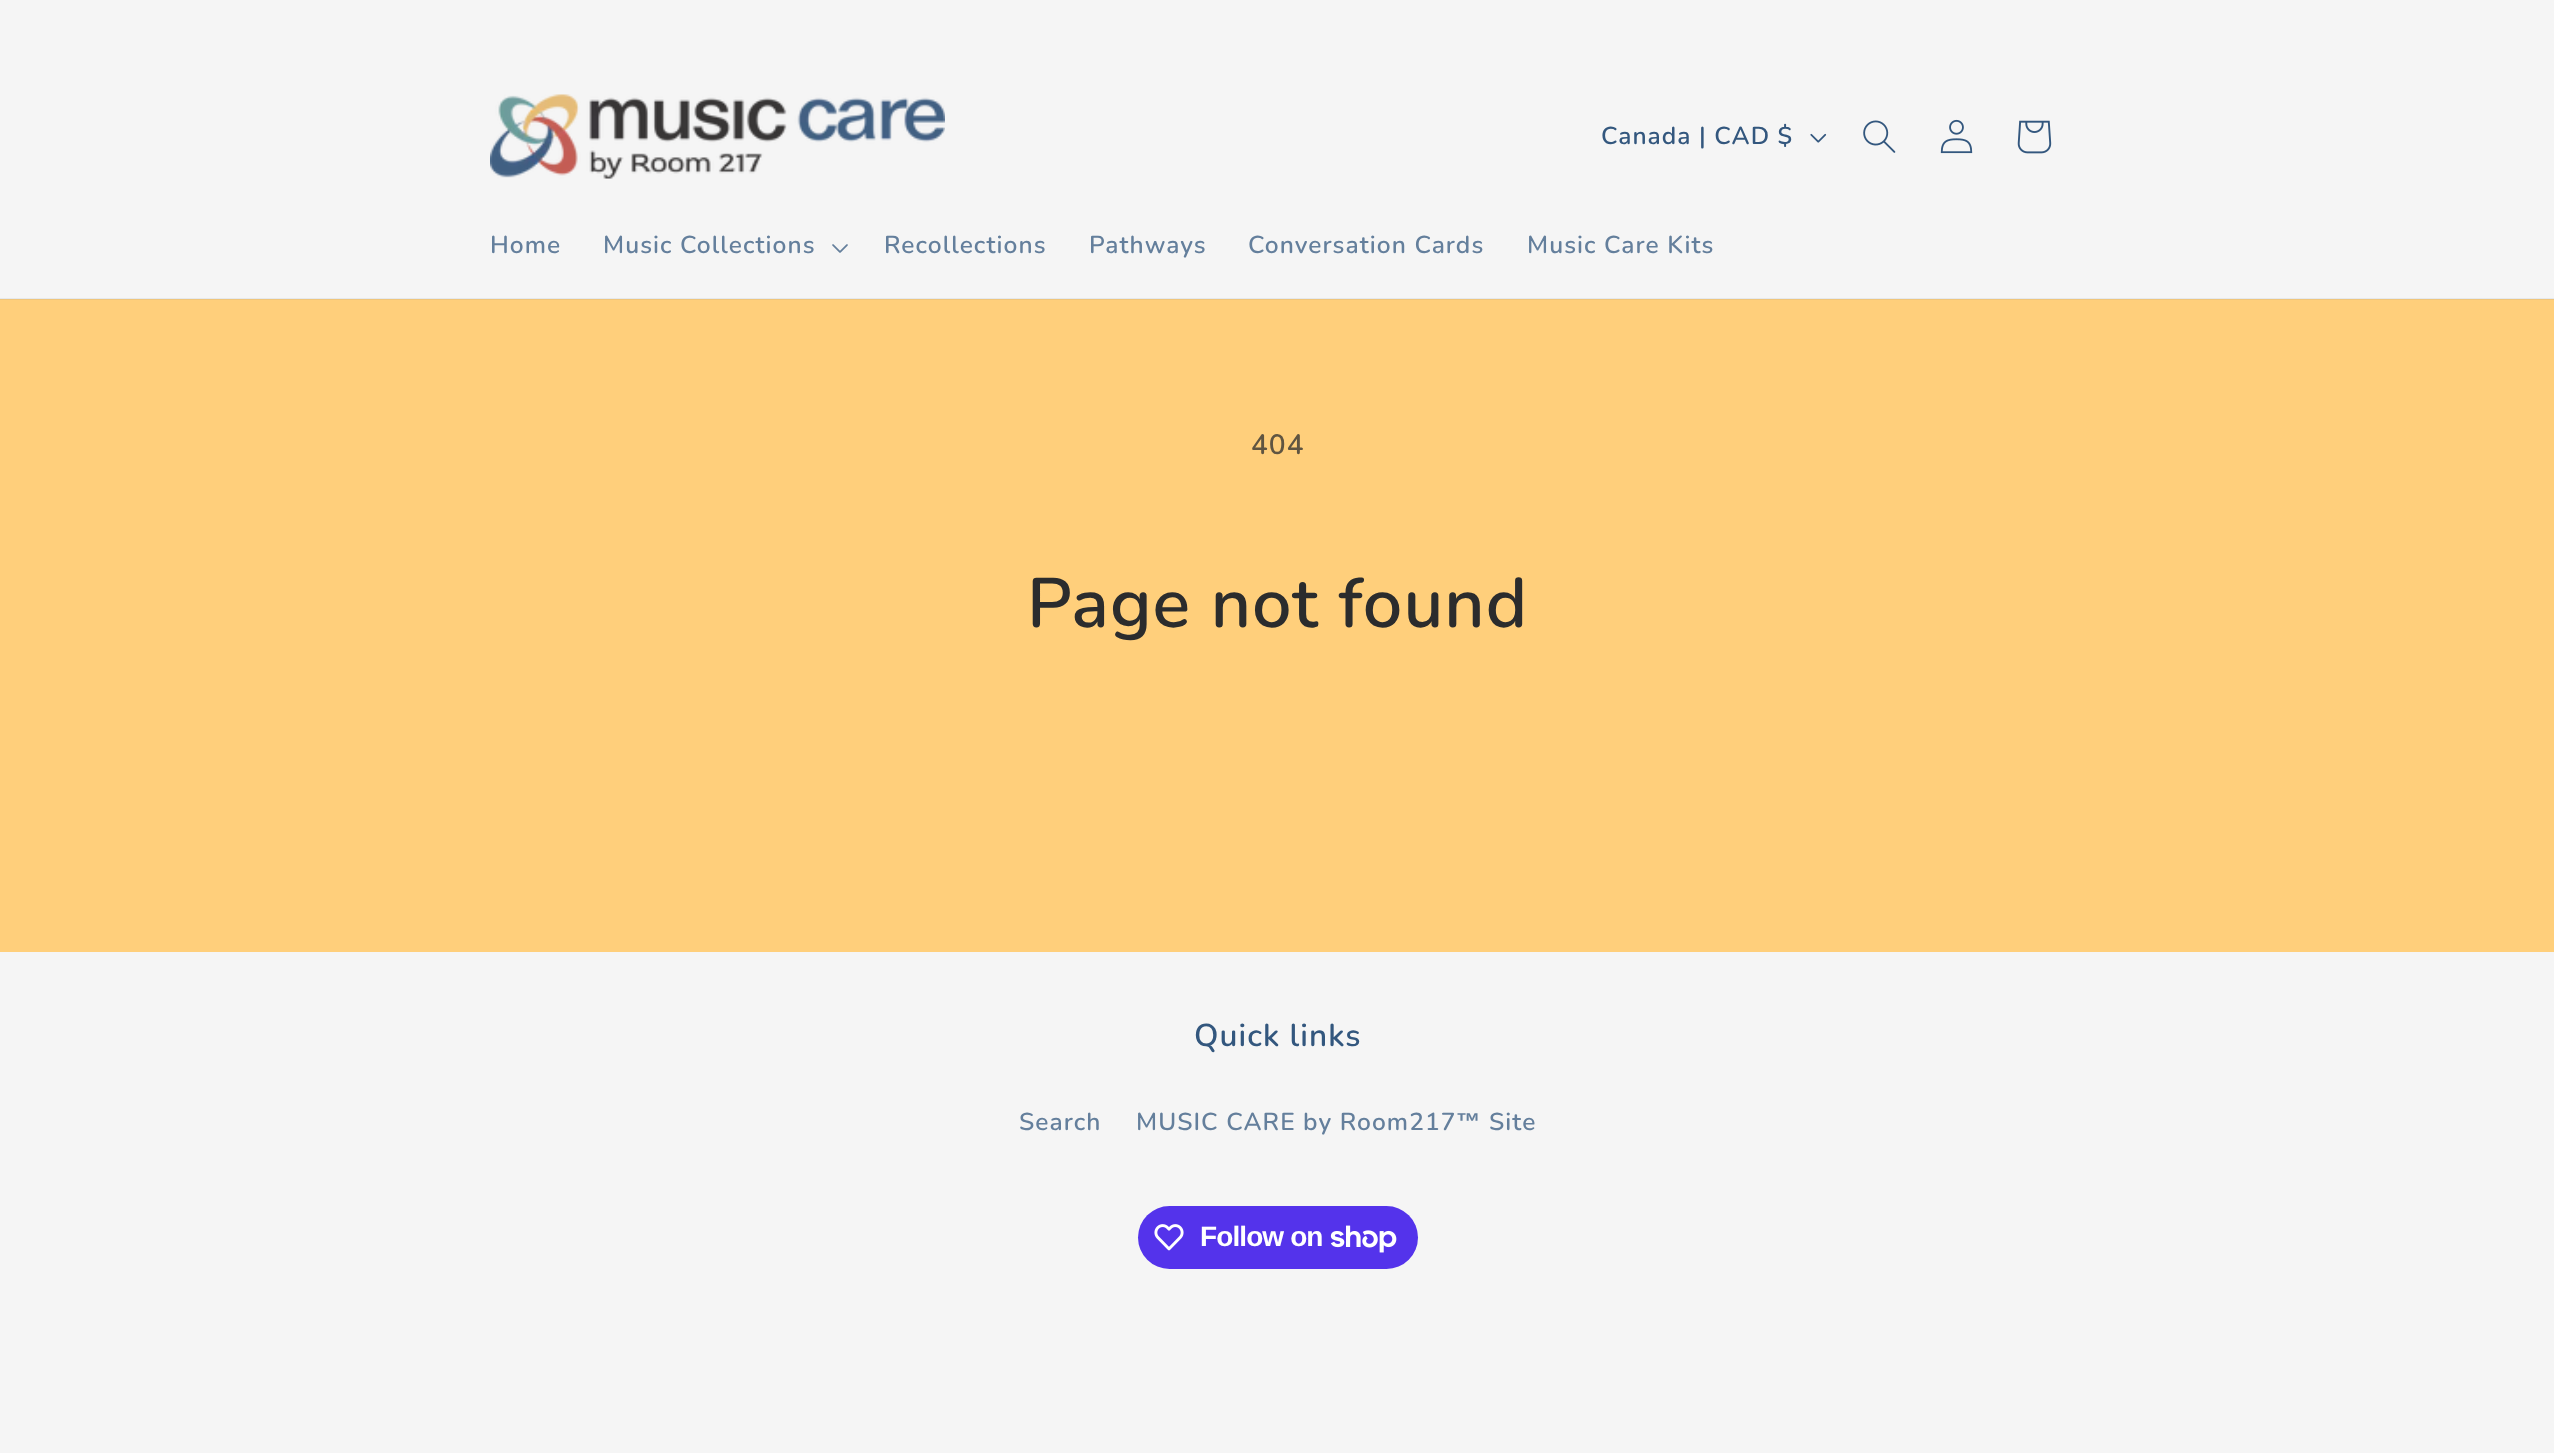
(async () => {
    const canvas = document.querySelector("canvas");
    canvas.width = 2554;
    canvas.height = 1453;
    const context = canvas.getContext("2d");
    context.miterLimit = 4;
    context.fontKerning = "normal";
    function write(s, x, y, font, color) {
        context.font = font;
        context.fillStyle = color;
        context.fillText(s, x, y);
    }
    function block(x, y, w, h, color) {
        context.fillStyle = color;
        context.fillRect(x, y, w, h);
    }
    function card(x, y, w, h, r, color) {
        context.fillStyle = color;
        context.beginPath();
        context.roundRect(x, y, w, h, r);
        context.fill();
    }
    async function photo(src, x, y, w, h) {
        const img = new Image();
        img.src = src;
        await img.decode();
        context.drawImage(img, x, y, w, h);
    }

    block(0, 0, 2554, 1453, "rgb(255, 207, 123)");
    block(0, 299, 2554, 1, "rgb(239, 197, 123)");
    block(0, 0, 2554, 298, "rgb(245, 245, 245)");
    block(0, 298, 2554, 1, "rgb(229, 232, 235)");
    await photo("media/1.png", 490, 94, 455, 85);
    context.letterSpacing = "1.05px";
    write("Canada | CAD $", 1601, 144, "600 24.5px Nunito", "rgb(51, 87, 126)");
    await photo("media/2.png", 1810, 133, 17, 10);
    await photo("media/3.png", 1863, 120, 33, 33);
    await photo("media/4.png", 1940, 119, 33, 35);
    await photo("media/5.png", 2017, 120, 35, 34);
    write("Home", 490, 253, "600 24.5px Nunito", "rgb(100, 127, 156)");
    write("Music Collections", 603, 253, "600 24.5px Nunito", "rgb(100, 127, 156)");
    await photo("media/6.png", 832, 244, 16, 9);
    write("Recollections", 884, 253, "600 24.5px Nunito", "rgb(100, 127, 156)");
    write("Pathways", 1089, 253, "600 24.5px Nunito", "rgb(100, 127, 156)");
    write("Conversation Cards", 1248, 253, "600 24.5px Nunito", "rgb(100, 127, 156)");
    write("Music Care Kits", 1527, 253, "600 24.5px Nunito", "rgb(100, 127, 156)");
    write("404", 1251, 454, "600 28px Nunito", "rgb(96, 85, 65)");
    write("Page not found", 1027, 627, "600 70px Nunito", "rgb(43, 44, 45)");
    block(0, 952, 2554, 501, "rgb(245, 245, 245)");
    write("Quick links", 1194, 1046, "600 31.5px Nunito", "rgb(51, 87, 126)");
    write("Search", 1019, 1130, "600 24.5px Nunito", "rgb(100, 127, 156)");
    write("MUSIC CARE by Room217", 1136, 1130, "600 24.5px Nunito", "rgb(100, 127, 156)");
    write("™", 1456, 1130, "bold 24.5px Liberation Sans", "rgb(100, 127, 156)");
    write("Site", 1489, 1130, "600 24.5px Nunito", "rgb(100, 127, 156)");
    card(1138, 1206, 280, 63, 31.5, "rgb(84, 51, 235)");
    await photo("media/7.png", 1154, 1224, 30, 27);
    context.letterSpacing = "-0.9px";
    write("Follow on", 1200, 1246, "bold 28px Liberation Sans", "rgb(255, 255, 255)");
    await photo("media/8.png", 1330, 1225, 67, 28);
})();
